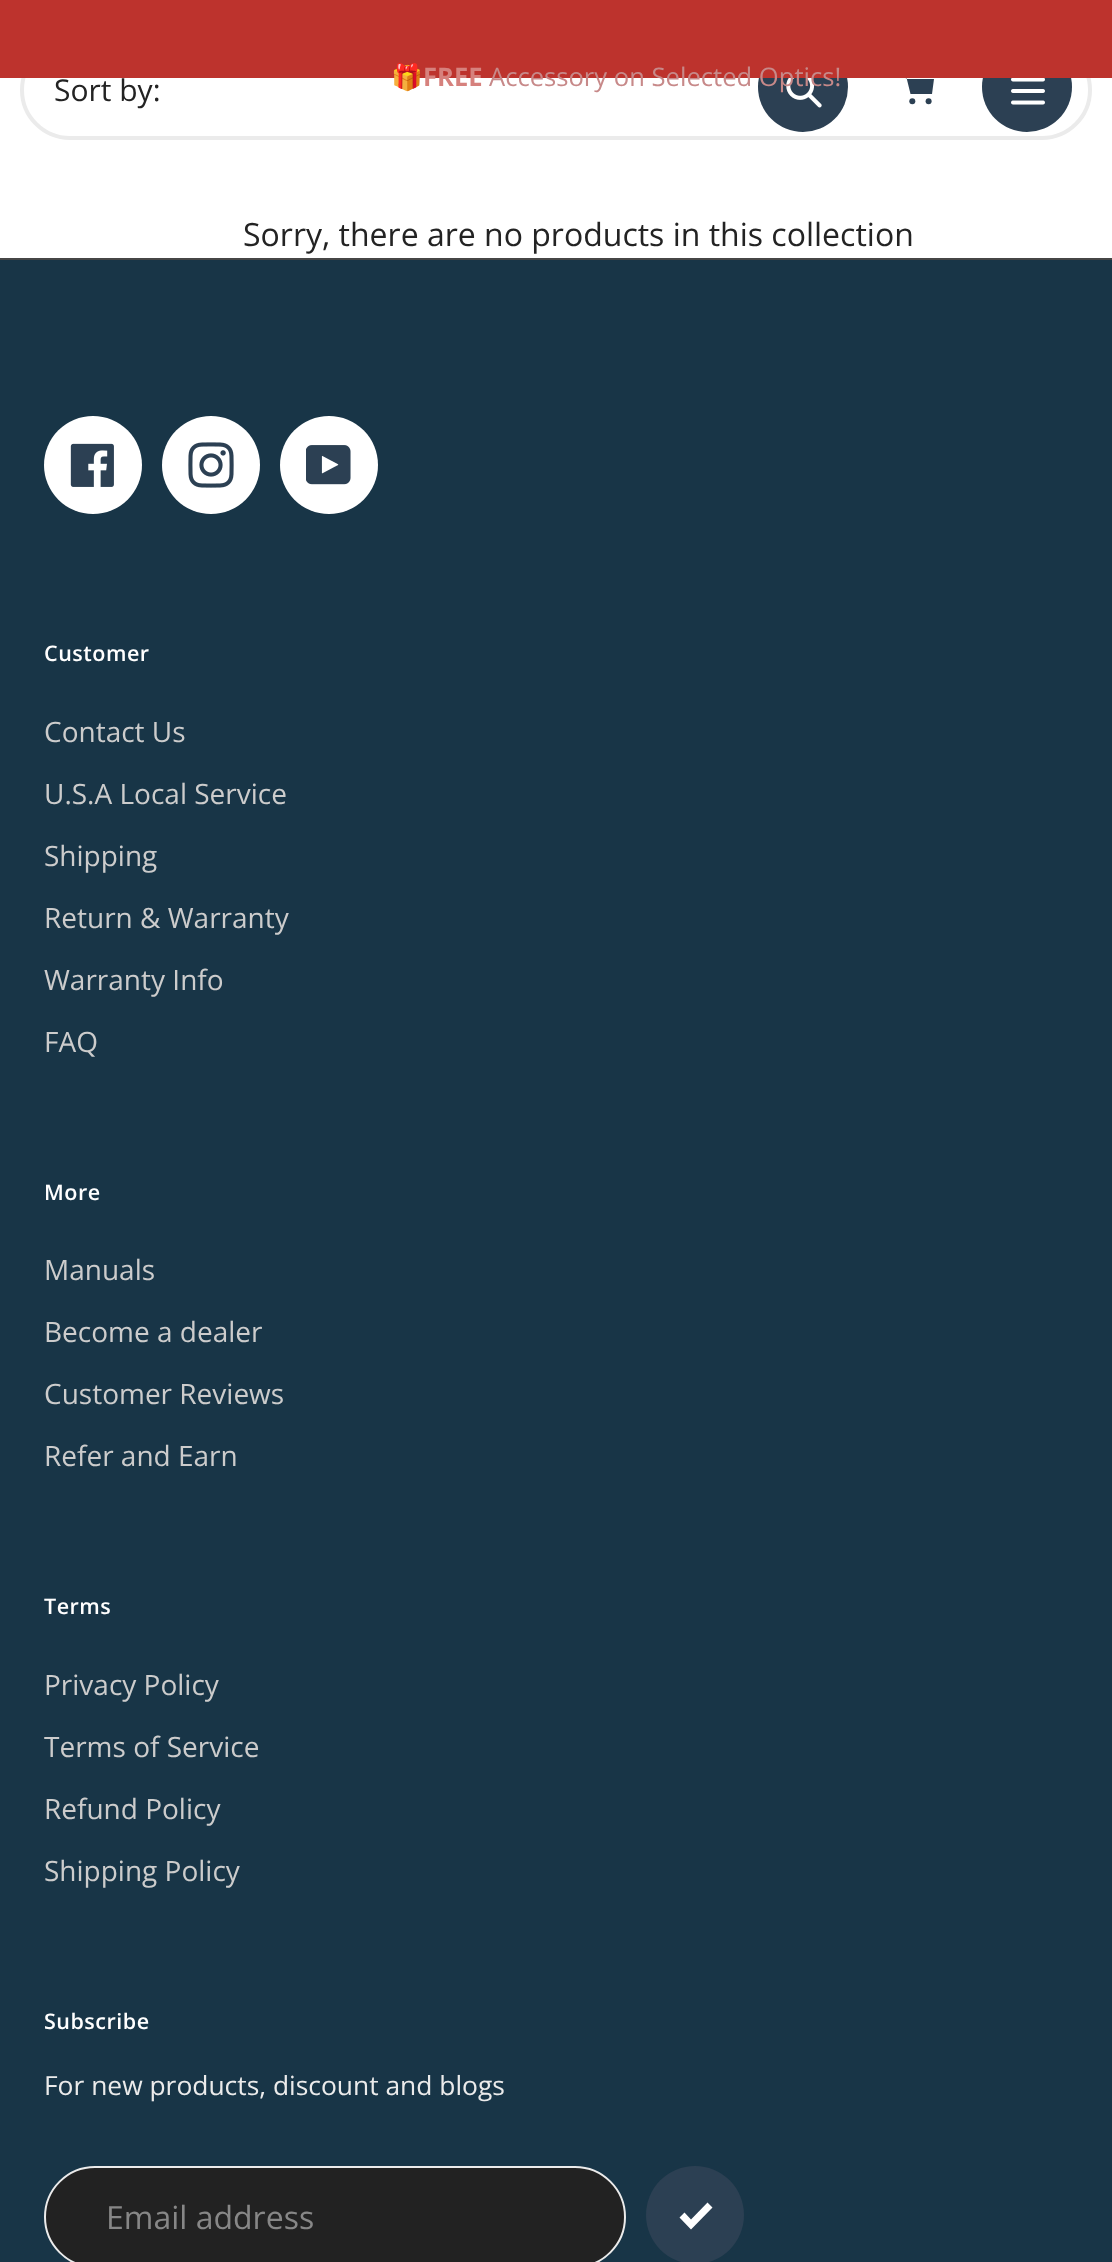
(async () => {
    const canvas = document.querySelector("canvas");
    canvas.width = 1112;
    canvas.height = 2262;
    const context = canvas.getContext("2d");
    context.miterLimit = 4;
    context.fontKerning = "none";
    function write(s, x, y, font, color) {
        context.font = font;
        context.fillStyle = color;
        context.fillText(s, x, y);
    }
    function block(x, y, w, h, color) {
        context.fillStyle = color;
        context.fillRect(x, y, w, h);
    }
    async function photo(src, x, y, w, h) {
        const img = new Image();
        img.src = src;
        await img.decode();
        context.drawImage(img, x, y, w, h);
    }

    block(0, 0, 1112, 2262, "rgb(255, 255, 255)");
    context.beginPath();
    context.roundRect(22, 42, 1068, 96, 48);
    context.strokeStyle = "rgb(235, 235, 235)";
    context.lineWidth = 4;
    context.stroke();
    context.fillStyle = "rgb(44, 64, 83)";
    context.beginPath();
    context.arc(803, 87, 45, 0, Math.PI * 2);
    context.fill();
    context.fillStyle = "rgb(255, 255, 255)";
    context.beginPath();
    context.arc(915, 87, 45, 0, Math.PI * 2);
    context.fill();
    context.fillStyle = "rgb(44, 64, 83)";
    context.beginPath();
    context.moveTo(907, 79);
    context.lineTo(934, 79);
    context.lineTo(932, 94);
    context.lineTo(910.5, 94);
    context.lineTo(905, 71.5);
    context.lineTo(896, 71.5);
    context.fill("evenodd");
    context.beginPath();
    context.arc(1027, 87, 45, 0, Math.PI * 2);
    context.fill();
    block(0, 0, 1112, 78, "rgb(189, 51, 45)");
    write("🎁", 391, 86, "25.6px Noto Color Emoji", "rgb(220, 146, 143)");
    write("FREE", 423, 86, "bold 25.6px Open Sans", "rgb(214, 129, 125)");
    await photo("media/1.png", 786, 78, 36, 30);
    write("Accessory on Selected Optics!", 489, 86, "25.6px Open Sans", "rgb(199, 137, 137)");
    context.fillStyle = "rgb(44, 64, 83)";
    context.beginPath();
    context.arc(912.3, 101.3, 3, 0, Math.PI * 2);
    context.fill();
    context.beginPath();
    context.arc(928.6, 101.3, 3, 0, Math.PI * 2);
    context.fill();
    await photo("media/2.png", 1011, 78, 34, 27);
    write("Sort by:", 54, 101, "30px Open Sans", "rgb(35, 35, 35)");
    write("Sorry, there are no products in this collection", 243, 246, "32px Open Sans", "rgb(35, 35, 35)");
    block(0, 260, 1112, 2002, "rgb(24, 53, 71)");
    block(0, 258, 1112, 2, "rgb(70, 70, 70)");
    context.fillStyle = "rgb(255, 255, 255)";
    context.beginPath();
    context.arc(93, 465, 49, 0, Math.PI * 2);
    context.fill();
    await photo("media/3.png", 70, 443, 44, 44);
    context.beginPath();
    context.arc(211, 465, 49, 0, Math.PI * 2);
    context.fill();
    await photo("media/4.png", 188, 442, 46, 46);
    context.beginPath();
    context.arc(329, 465, 49, 0, Math.PI * 2);
    context.fill();
    await photo("media/5.png", 306, 445, 45, 40);
    context.letterSpacing = "0.5px";
    write("Customer", 44, 661, "600 21.5px Open Sans", "rgb(255, 255, 255)");
    context.letterSpacing = "0px";
    write("Contact Us", 44, 742, "28px Open Sans", "rgb(204, 204, 204)");
    write("U.S.A Local Service", 44, 804, "28px Open Sans", "rgb(204, 204, 204)");
    write("Shipping", 44, 866, "28px Open Sans", "rgb(204, 204, 204)");
    write("Return & Warranty", 44, 928, "28px Open Sans", "rgb(204, 204, 204)");
    write("Warranty Info", 44, 990, "28px Open Sans", "rgb(204, 204, 204)");
    write("FAQ", 44, 1052, "28px Open Sans", "rgb(204, 204, 204)");
    context.letterSpacing = "0.5px";
    write("More", 44, 1200, "600 21.5px Open Sans", "rgb(255, 255, 255)");
    context.letterSpacing = "0px";
    write("Manuals", 44, 1280, "28px Open Sans", "rgb(204, 204, 204)");
    write("Become a dealer", 44, 1342, "28px Open Sans", "rgb(204, 204, 204)");
    write("Customer Reviews", 44, 1404, "28px Open Sans", "rgb(204, 204, 204)");
    write("Refer and Earn", 44, 1466, "28px Open Sans", "rgb(204, 204, 204)");
    context.letterSpacing = "0.5px";
    write("Terms", 44, 1614, "600 21.5px Open Sans", "rgb(255, 255, 255)");
    context.letterSpacing = "0px";
    write("Privacy Policy", 44, 1695, "28px Open Sans", "rgb(204, 204, 204)");
    write("Terms of Service", 44, 1757, "28px Open Sans", "rgb(204, 204, 204)");
    write("Refund Policy", 44, 1819, "28px Open Sans", "rgb(204, 204, 204)");
    write("Shipping Policy", 44, 1881, "28px Open Sans", "rgb(204, 204, 204)");
    context.letterSpacing = "0.5px";
    write("Subscribe", 44, 2029, "600 21.5px Open Sans", "rgb(255, 255, 255)");
    context.letterSpacing = "0px";
    write("For new products, discount and blogs", 44, 2095, "26.4px Open Sans", "rgb(235, 235, 235)");
    context.fillStyle = "rgb(34, 34, 34)";
    context.beginPath();
    context.roundRect(45, 2167, 580, 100, 50);
    context.fill();
    context.lineWidth = 2;
    context.stroke();
    write("Email address", 106, 2229, "32px Open Sans", "rgb(135, 135, 135)");
    context.fillStyle = "rgb(44, 64, 83)";
    context.beginPath();
    context.arc(695, 2215, 49, 0, Math.PI * 2);
    context.fill();
    context.fillStyle = "rgb(255, 255, 255)";
    context.beginPath();
    context.moveTo(691, 2229.5);
    context.lineTo(679.5, 2217.5);
    context.lineTo(684.5, 2212.5);
    context.lineTo(691, 2219.5);
    context.lineTo(707.5, 2202.5);
    context.lineTo(712.5, 2207.5);
    context.closePath();
    context.fill();
})();
